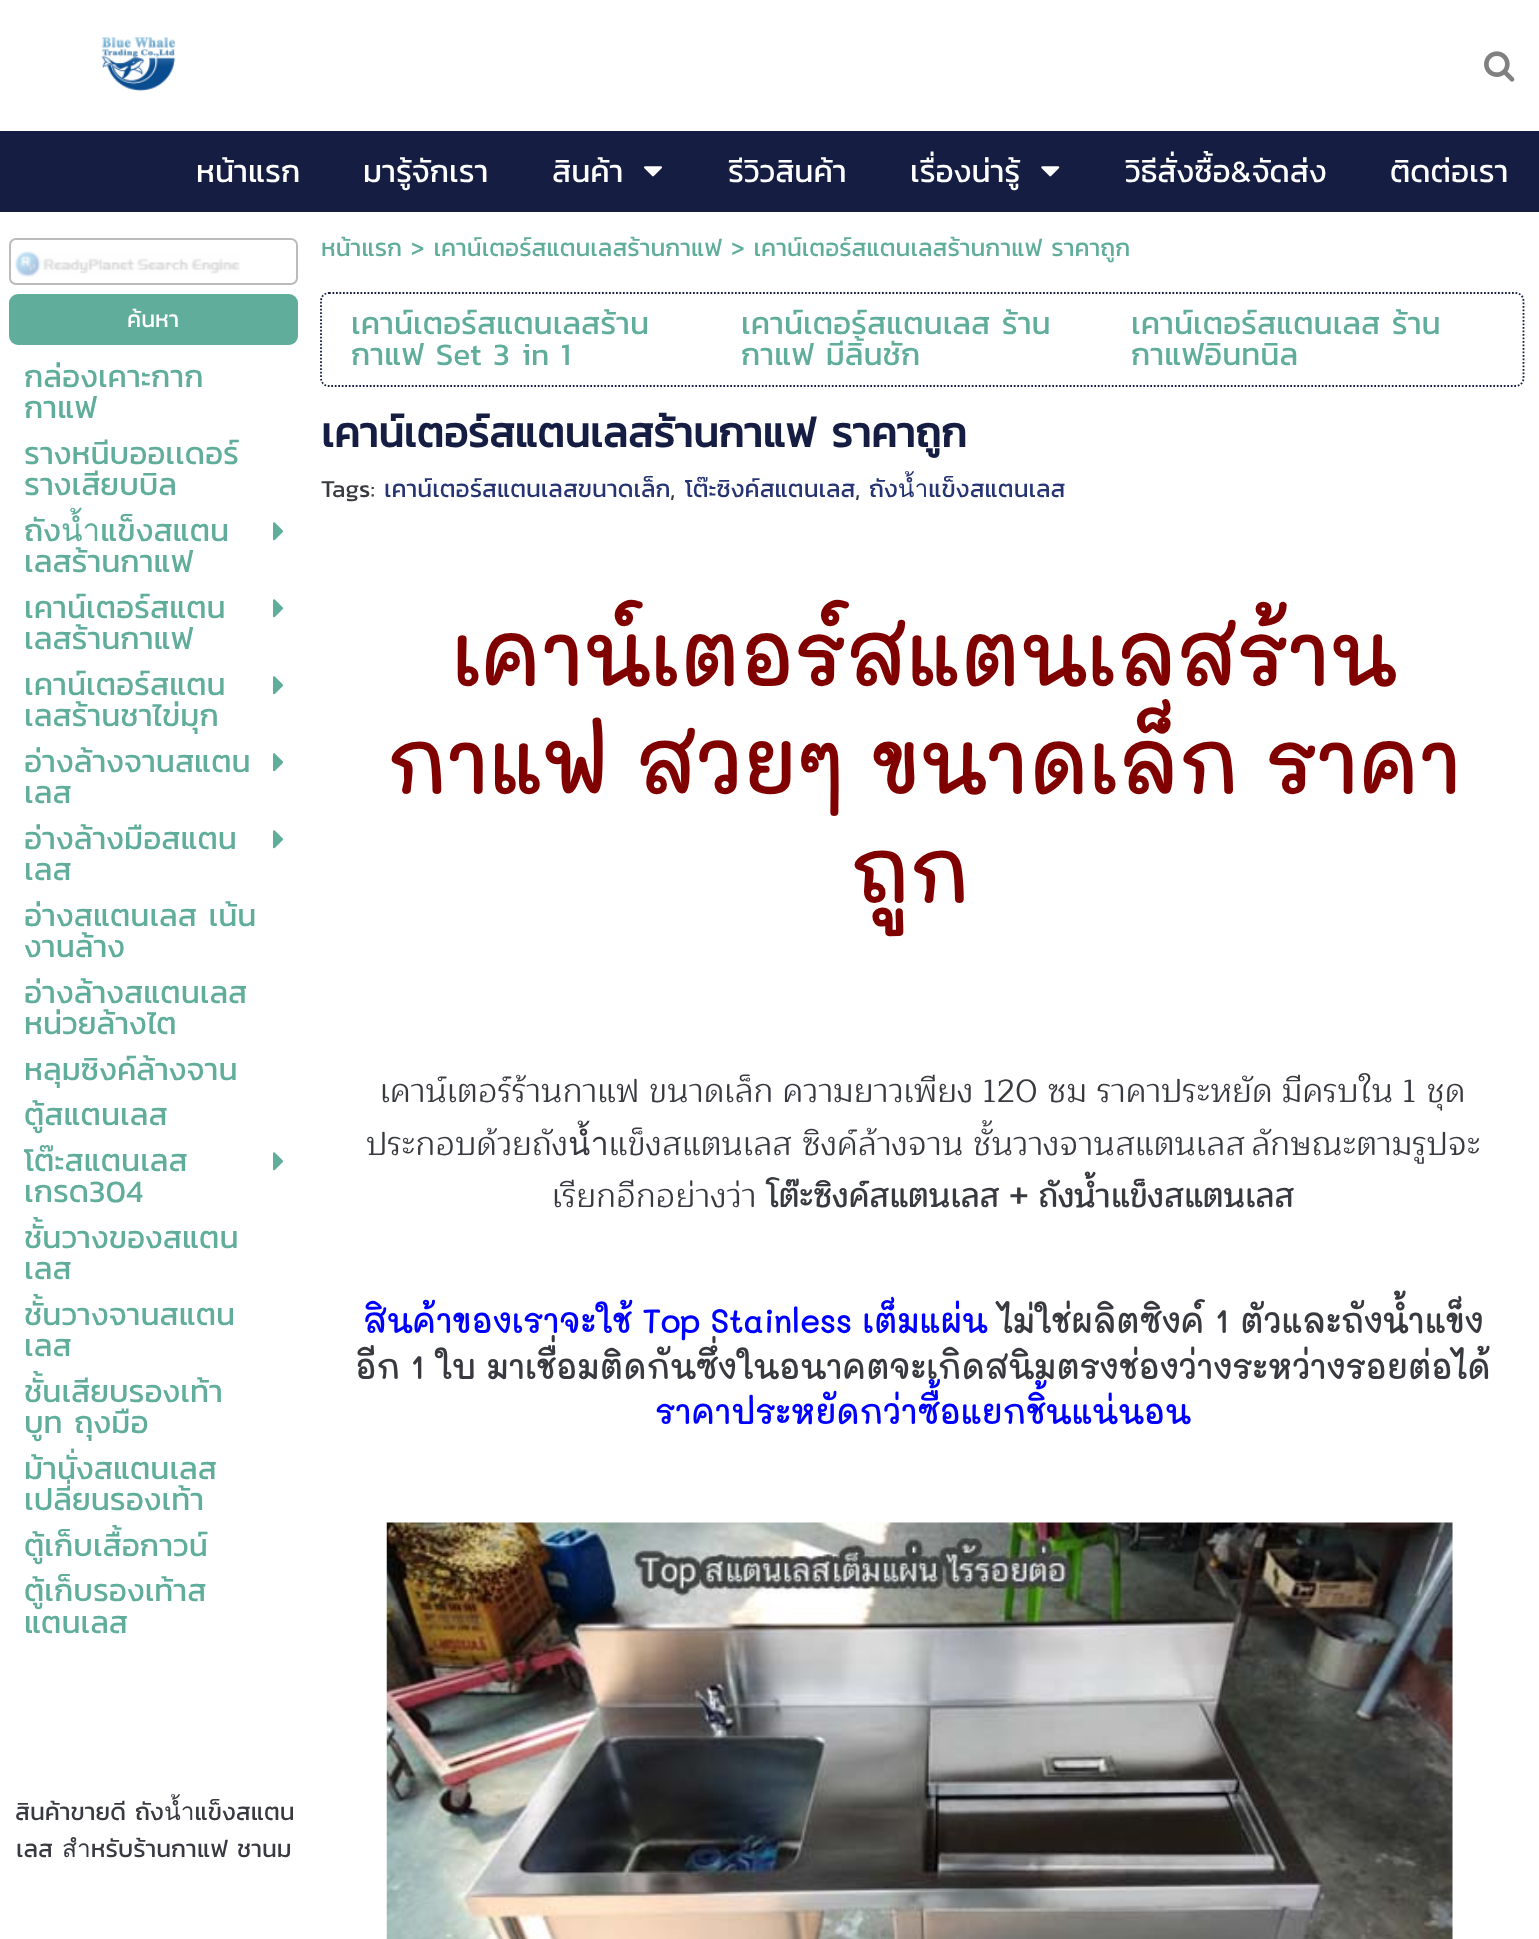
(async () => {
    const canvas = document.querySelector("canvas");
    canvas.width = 1539;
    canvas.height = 1939;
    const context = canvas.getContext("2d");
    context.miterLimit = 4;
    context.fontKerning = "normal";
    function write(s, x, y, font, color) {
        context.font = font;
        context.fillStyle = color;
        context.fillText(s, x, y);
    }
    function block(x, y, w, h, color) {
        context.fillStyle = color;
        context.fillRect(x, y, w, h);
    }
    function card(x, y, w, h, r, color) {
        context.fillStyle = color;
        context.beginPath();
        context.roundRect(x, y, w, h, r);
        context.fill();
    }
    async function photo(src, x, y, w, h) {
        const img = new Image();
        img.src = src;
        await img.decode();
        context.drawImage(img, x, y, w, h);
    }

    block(0, 0, 1539, 1939, "rgb(255, 255, 255)");
    await photo("media/1.png", 101, 37, 75, 55);
    await photo("media/2.png", 1484, 51, 31, 31);
    block(0, 131, 1539, 81, "rgb(21, 29, 66)");
    write("หน้าแรก", 196, 182, "31.5px Kanit", "rgb(255, 255, 255)");
    write("มารู้จักเรา", 363, 182, "31.5px Kanit", "rgb(255, 255, 255)");
    write("สินค้า", 552, 182, "31.5px Kanit", "rgb(255, 255, 255)");
    await photo("media/3.png", 644, 166, 18, 11);
    write("รีวิวสินค้า", 728, 182, "31.5px Kanit", "rgb(255, 255, 255)");
    write("เรื่องน่ารู้", 910, 182, "31.5px Kanit", "rgb(255, 255, 255)");
    await photo("media/4.png", 1041, 166, 19, 11);
    write("วิธีสั่งซื้อ&จัดส่ง", 1125, 182, "31.5px Kanit", "rgb(255, 255, 255)");
    write("ติดต่อเรา", 1390, 182, "31.5px Kanit", "rgb(255, 255, 255)");
    write("หน้าแรก > เคาน์เตอร์สแตนเลสร้านกาแฟ > เคาน์เตอร์สแตนเลสร้านกาแฟ ราคาถูก", 321, 256, "24.5px Kanit", "rgb(96, 173, 155)");
    await photo("media/5.png", 15, 251, 225, 26);
    context.beginPath();
    context.roundRect(10, 239, 287, 45, 6);
    context.strokeStyle = "rgb(187, 187, 187)";
    context.lineWidth = 2;
    context.stroke();
    card(9, 294, 289, 51, 9, "rgb(96, 173, 155)");
    write("ค้นหา", 127, 327, "23px Kanit", "rgb(255, 255, 255)");
    write("กล่องเคาะกาก", 24, 387, "31.5px Kanit", "rgb(96, 173, 155)");
    write("กาแฟ", 24, 418, "31.5px Kanit", "rgb(96, 173, 155)");
    write("รางหนีบออเเดอร์", 24, 464, "31.5px Kanit", "rgb(96, 173, 155)");
    write("รางเสียบบิล", 24, 495, "31.5px Kanit", "rgb(96, 173, 155)");
    write("ถังน้ำแข็งสแตน", 24, 541, "31.5px Kanit", "rgb(96, 173, 155)");
    write("เลสร้านกาแฟ", 24, 572, "31.5px Kanit", "rgb(96, 173, 155)");
    await photo("media/6.png", 273, 522, 11, 19);
    write("เคาน์เตอร์สแตน", 24, 618, "31.5px Kanit", "rgb(96, 173, 155)");
    write("เลสร้านกาแฟ", 24, 649, "31.5px Kanit", "rgb(96, 173, 155)");
    await photo("media/6.png", 273, 599, 11, 19);
    write("เคาน์เตอร์สแตน", 24, 695, "31.5px Kanit", "rgb(96, 173, 155)");
    write("เลสร้านชาไข่มุก", 24, 726, "31.5px Kanit", "rgb(96, 173, 155)");
    await photo("media/6.png", 273, 676, 11, 19);
    write("อ่างล้างจานสแตน", 24, 772, "31.5px Kanit", "rgb(96, 173, 155)");
    write("เลส", 24, 803, "31.5px Kanit", "rgb(96, 173, 155)");
    await photo("media/6.png", 273, 753, 11, 19);
    write("อ่างล้างมือสแตน", 24, 849, "31.5px Kanit", "rgb(96, 173, 155)");
    write("เลส", 24, 880, "31.5px Kanit", "rgb(96, 173, 155)");
    await photo("media/6.png", 273, 830, 11, 19);
    write("อ่างสแตนเลส เน้น", 24, 926, "31.5px Kanit", "rgb(96, 173, 155)");
    write("งานล้าง", 24, 957, "31.5px Kanit", "rgb(96, 173, 155)");
    write("อ่างล้างสแตนเลส", 24, 1003, "31.5px Kanit", "rgb(96, 173, 155)");
    write("หน่วยล้างไต", 24, 1034, "31.5px Kanit", "rgb(96, 173, 155)");
    write("หลุมซิงค์ล้างจาน", 24, 1080, "31.5px Kanit", "rgb(96, 173, 155)");
    write("ตู้สแตนเลส", 24, 1125, "31.5px Kanit", "rgb(96, 173, 155)");
    write("โต๊ะสแตนเลส", 24, 1171, "31.5px Kanit", "rgb(96, 173, 155)");
    write("เกรด304", 24, 1202, "31.5px Kanit", "rgb(96, 173, 155)");
    await photo("media/6.png", 273, 1152, 11, 19);
    write("ชั้นวางของสแตน", 24, 1248, "31.5px Kanit", "rgb(96, 173, 155)");
    write("เลส", 24, 1279, "31.5px Kanit", "rgb(96, 173, 155)");
    write("ชั้นวางจานสแตน", 24, 1325, "31.5px Kanit", "rgb(96, 173, 155)");
    write("เลส", 24, 1356, "31.5px Kanit", "rgb(96, 173, 155)");
    write("ชั้นเสียบรองเท้า", 24, 1402, "31.5px Kanit", "rgb(96, 173, 155)");
    write("บูท ถุงมือ", 24, 1433, "31.5px Kanit", "rgb(96, 173, 155)");
    write("ม้านั่งสแตนเลส", 24, 1479, "31.5px Kanit", "rgb(96, 173, 155)");
    write("เปลี่ยนรองเท้า", 24, 1510, "31.5px Kanit", "rgb(96, 173, 155)");
    write("ตู้เก็บเสื้อกาวน์", 24, 1556, "31.5px Kanit", "rgb(96, 173, 155)");
    write("ตู้เก็บรองเท้าส", 24, 1601, "31.5px Kanit", "rgb(96, 173, 155)");
    write("แตนเลส", 24, 1633, "31.5px Kanit", "rgb(96, 173, 155)");
    write("สินค้าขายดี ถังน้ำแข็งสแตน", 15, 1820, "24.5px Kanit", "rgb(56, 58, 64)");
    write("เลส สำหรับร้านกาแฟ ชานม", 16, 1857, "24.5px Kanit", "rgb(56, 58, 64)");
    context.beginPath();
    context.moveTo(329, 293);
    context.lineTo(1515.5, 293);
    context.bezierCurveTo(1520, 293, 1523.5, 296.5, 1523.5, 301);
    context.lineTo(1523.5, 378);
    context.bezierCurveTo(1523.5, 382.5, 1520, 386, 1515.5, 386);
    context.lineTo(329, 386);
    context.bezierCurveTo(324.5, 386, 321, 382.5, 321, 378);
    context.lineTo(321, 301);
    context.bezierCurveTo(321, 296.5, 324.5, 293, 329, 293);
    context.closePath();
    context.strokeStyle = "rgb(21, 29, 66)";
    context.lineWidth = 1.8;
    context.setLineDash([1.75, 1.75]);
    context.stroke();
    write("เคาน์เตอร์สแตนเลสร้าน", 351, 334, "31.5px Kanit", "rgb(96, 173, 155)");
    write("กาแฟ Set 3 in 1", 351, 365, "31.5px Kanit", "rgb(96, 173, 155)");
    write("เคาน์เตอร์สแตนเลส ร้าน", 741, 334, "31.5px Kanit", "rgb(96, 173, 155)");
    write("กาแฟ มีลิ้นชัก", 741, 365, "31.5px Kanit", "rgb(96, 173, 155)");
    write("เคาน์เตอร์สแตนเลส ร้าน", 1131, 334, "31.5px Kanit", "rgb(96, 173, 155)");
    write("กาแฟอินทนิล", 1131, 365, "31.5px Kanit", "rgb(96, 173, 155)");
    write("เคาน์เตอร์สแตนเลสร้านกาแฟ ราคาถูก", 321, 447, "bold 42px Kanit", "rgb(21, 29, 66)");
    write("Tags:", 321, 497, "24.5px Kanit", "rgb(56, 58, 64)");
    write("เคาน์เตอร์สแตนเลสขนาดเล็ก", 384, 497, "24.5px Kanit", "rgb(38, 52, 115)");
    write(",", 670, 497, "24.5px Kanit", "rgb(56, 58, 64)");
    write("โต๊ะซิงค์สแตนเลส", 685, 497, "24.5px Kanit", "rgb(38, 52, 115)");
    write(",", 855, 497, "24.5px Kanit", "rgb(56, 58, 64)");
    write("ถังน้ำแข็งสแตนเลส", 869, 497, "24.5px Kanit", "rgb(38, 52, 115)");
    write("เคาน์เตอร์สแตนเลสร้าน", 451, 686, "bold 84px Mali", "rgb(128, 0, 0)");
    write("กาแฟ สวยๆ ขนาดเล็ก ราคา", 386, 794, "bold 84px Mali", "rgb(128, 0, 0)");
    write("ถูก", 851, 903, "bold 84px Mali", "rgb(128, 0, 0)");
    write("เคาน์เตอร์ร้านกาแฟ ขนาดเล็ก ความยาวเพียง 120 ซม ราคาประหยัด มีครบใน 1 ชุด", 380, 1102, "32.65px Maitree", "rgb(56, 58, 64)");
    write("ประกอบด้วยถังน้ำแข็งสแตนเลส ซิงค์ล้างจาน ชั้นวางจานสแตนเลส", 366, 1155, "32.65px Maitree", "rgb(56, 58, 64)");
    write("ลักษณะตามรูปจะ", 1251, 1155, "32.65px Maitree", "rgb(56, 58, 64)");
    write("เรียกอีกอย่างว่า", 552, 1207, "32.65px Maitree", "rgb(56, 58, 64)");
    write("โต๊ะซิงค์สแตนเลส + ถังน้ำแข็งสแตนเลส", 766, 1207, "bold 32.65px Maitree", "rgb(56, 58, 64)");
    write("สินค้าของเราจะใช้ Top Stainless เต็มแผ่น", 363, 1333, "bold 32.65px Mali", "rgb(0, 0, 255)");
    write("ไม่ใช่ผลิตซิงค์ 1 ตัวและถังน้ำแข็ง", 998, 1333, "bold 32.65px Mali", "rgb(56, 58, 64)");
    write("อีก 1 ใบ มาเชื่อมติดกันซึ่งในอนาคตจะเกิดสนิมตรงช่องว่างระหว่างรอยต่อได้", 355, 1379, "bold 32.65px Mali", "rgb(56, 58, 64)");
    write("ราคาประหยัดกว่าซื้อแยกชิ้นแน่นอน", 655, 1424, "bold 32.65px Mali", "rgb(0, 0, 255)");
    await photo("media/7.png", 386, 1522, 1067, 417);
})();
